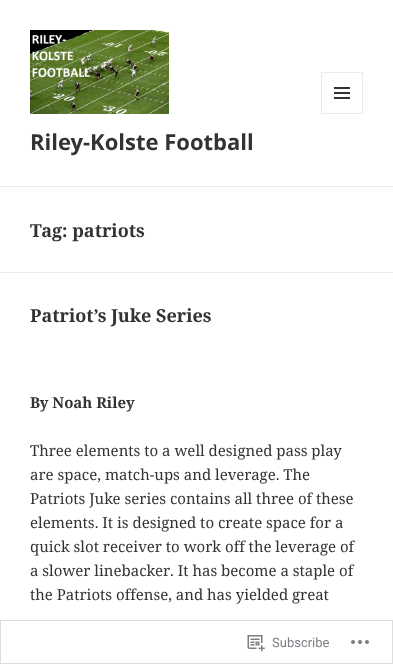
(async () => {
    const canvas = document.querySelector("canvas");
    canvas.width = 393;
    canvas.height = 664;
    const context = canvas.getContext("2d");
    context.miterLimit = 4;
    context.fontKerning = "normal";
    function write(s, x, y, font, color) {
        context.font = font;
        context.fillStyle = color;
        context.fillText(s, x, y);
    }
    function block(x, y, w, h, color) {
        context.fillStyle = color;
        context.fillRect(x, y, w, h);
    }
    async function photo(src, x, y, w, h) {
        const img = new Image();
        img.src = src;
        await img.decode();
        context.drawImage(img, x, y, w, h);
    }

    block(0, 0, 393, 664, "rgb(255, 255, 255)");
    block(0, 186, 393, 1, "rgb(235, 235, 235)");
    await photo("media/1.png", 30, 30, 139, 84);
    context.strokeStyle = "rgb(235, 235, 235)";
    context.strokeRect(321.5, 72.5, 41, 41);
    await photo("media/2.png", 334, 87, 16, 12);
    write("Riley-Kolste Football", 30, 150, "bold 22px Noto Sans", "rgb(51, 51, 51)");
    block(0, 272, 393, 1, "rgb(235, 235, 235)");
    write("Tag: patriots", 30, 237, "bold 18px Noto Serif", "rgb(51, 51, 51)");
    write("Patriot’s Juke Series", 30, 322, "bold 18px Noto Serif", "rgb(51, 51, 51)");
    write("By Noah Riley", 30, 408, "bold 15px Noto Serif", "rgb(51, 51, 51)");
    write("Three elements to a well designed pass play", 30, 456, "15px Noto Serif", "rgb(51, 51, 51)");
    write("are space, match-ups and leverage. The", 30, 480, "15px Noto Serif", "rgb(51, 51, 51)");
    write("Patriots Juke series contains all three of these", 30, 504, "15px Noto Serif", "rgb(51, 51, 51)");
    write("elements. It is designed to create space for a", 30, 528, "15px Noto Serif", "rgb(51, 51, 51)");
    write("quick slot receiver to work off the leverage of", 30, 552, "15px Noto Serif", "rgb(51, 51, 51)");
    write("a slower linebacker. It has become a staple of", 30, 576, "15px Noto Serif", "rgb(51, 51, 51)");
    write("the Patriots offense, and has yielded great", 30, 600, "15px Noto Serif", "rgb(51, 51, 51)");
    context.strokeStyle = "rgba(220, 220, 222, 0.98)";
    context.strokeRect(0.5, 620.5, 392, 43);
    await photo("media/3.png", 247, 635, 18, 17);
    write("Subscribe", 272, 647, "13px Roboto", "rgb(123, 127, 132)");
    await photo("media/4.png", 351, 640, 18, 4);
})();
